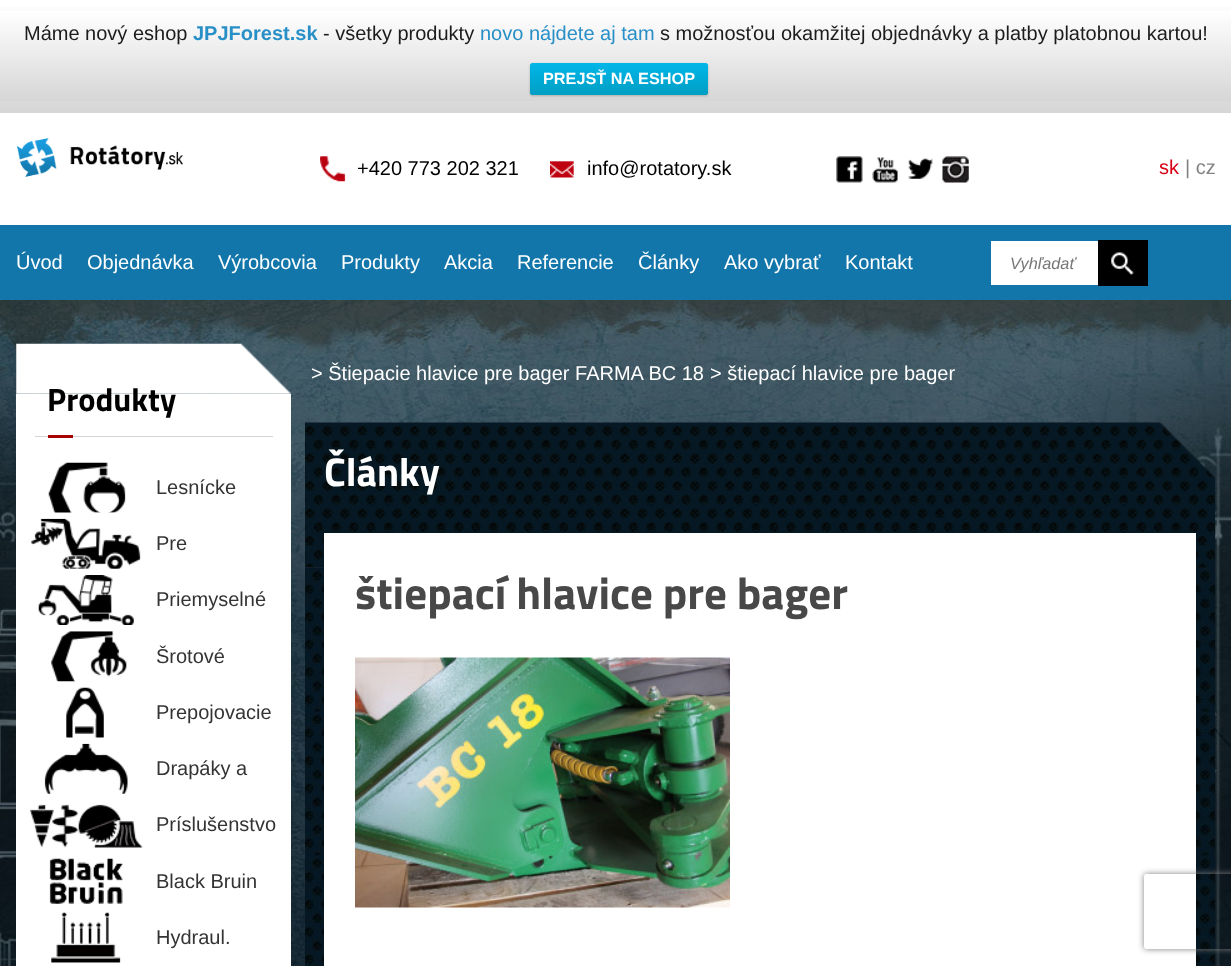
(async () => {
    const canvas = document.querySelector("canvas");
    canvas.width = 1231;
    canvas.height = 966;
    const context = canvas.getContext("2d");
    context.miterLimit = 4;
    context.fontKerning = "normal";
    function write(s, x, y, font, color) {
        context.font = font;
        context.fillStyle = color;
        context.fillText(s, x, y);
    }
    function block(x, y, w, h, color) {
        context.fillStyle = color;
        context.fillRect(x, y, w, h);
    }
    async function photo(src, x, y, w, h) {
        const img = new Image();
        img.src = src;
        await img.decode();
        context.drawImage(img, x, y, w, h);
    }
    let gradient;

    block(0, 0, 1231, 966, "rgb(255, 255, 255)");
    gradient = context.createLinearGradient(616, 0, 616, 113);
    gradient.addColorStop(0, "rgb(255, 255, 255)");
    gradient.addColorStop(1, "rgb(214, 214, 214)");
    context.fillStyle = gradient;
    context.fillRect(0, 7, 1231, 106);
    gradient = context.createLinearGradient(616, 11, 616, 101);
    gradient.addColorStop(0, "rgb(255, 255, 255)");
    gradient.addColorStop(1, "rgb(214, 214, 214)");
    context.fillStyle = gradient;
    context.fillRect(0, 11, 1231, 90);
    write("Máme nový eshop", 24, 40, "20px Liberation Sans", "rgb(28, 28, 28)");
    write("JPJForest.sk", 193, 40, "bold 20px Liberation Sans", "rgb(40, 143, 199)");
    write("- všetky produkty", 323, 40, "20px Liberation Sans", "rgb(28, 28, 28)");
    write("novo nájdete aj tam", 480, 40, "20px Liberation Sans", "rgb(40, 143, 199)");
    write("s možnosťou okamžitej objednávky a platby platobnou kartou!", 660, 40, "20px Liberation Sans", "rgb(28, 28, 28)");
    context.fillStyle = "rgba(0, 0, 0, 0.2)";
    context.filter = "blur(1px)";
    context.beginPath();
    context.roundRect(530, 64, 178, 32, 2.5);
    context.fill();
    context.filter = "none";
    gradient = context.createLinearGradient(619, 62, 619, 95);
    gradient.addColorStop(0, "rgb(0, 183, 234)");
    gradient.addColorStop(1, "rgb(0, 158, 195)");
    context.fillStyle = gradient;
    context.beginPath();
    context.roundRect(530, 63, 178, 32, 2.5);
    context.fill();
    write("PREJSŤ NA ESHOP", 543, 84, "bold 16.25px Liberation Sans", "rgb(255, 255, 255)");
    await photo("media/1.png", 17, 138, 166, 39);
    await photo("media/2.png", 320, 156, 26, 26);
    write("+420 773 202 321", 357, 175, "20px Liberation Sans", "rgb(0, 0, 0)");
    await photo("media/3.png", 550, 161, 24, 17);
    write("info@rotatory.sk", 587, 175, "20px Liberation Sans", "rgb(0, 0, 0)");
    await photo("media/4.png", 836, 156, 27, 27);
    await photo("media/5.png", 872, 157, 26, 26);
    await photo("media/6.png", 908, 158, 25, 21);
    await photo("media/7.png", 942, 156, 27, 27);
    write("sk", 1159, 174, "20px Liberation Sans", "rgb(216, 0, 23)");
    write("| cz", 1185, 174, "20px Liberation Sans", "rgb(131, 131, 131)");
    block(0, 225, 1231, 75, "rgb(18, 118, 170)");
    write("Úvod", 16, 269, "20px Liberation Sans", "rgb(255, 255, 255)");
    write("Objednávka", 87, 269, "20px Liberation Sans", "rgb(255, 255, 255)");
    write("Výrobcovia", 218, 269, "20px Liberation Sans", "rgb(255, 255, 255)");
    write("Produkty", 341, 269, "20px Liberation Sans", "rgb(255, 255, 255)");
    write("Akcia", 444, 269, "20px Liberation Sans", "rgb(255, 255, 255)");
    write("Referencie", 517, 269, "20px Liberation Sans", "rgb(255, 255, 255)");
    write("Články", 638, 269, "20px Liberation Sans", "rgb(255, 255, 255)");
    write("Ako vybrať", 724, 269, "20px Liberation Sans", "rgb(255, 255, 255)");
    write("Kontakt", 845, 269, "20px Liberation Sans", "rgb(255, 255, 255)");
    block(991, 241, 107, 44, "rgb(255, 255, 255)");
    write("Vyhľadať", 1010, 269, "italic 16.25px Liberation Sans", "rgb(117, 117, 117)");
    block(1098, 240, 50, 46, "rgb(0, 0, 0)");
    await photo("media/8.png", 1111, 252, 23, 23);
    await photo("media/9.png", 0, 300, 1231, 666);
    await photo("media/10.png", 16, 343, 275, 51);
    block(16, 394, 275, 572, "rgb(255, 255, 255)");
    block(35, 436, 238, 1, "rgb(211, 213, 216)");
    write("Produkty", 47, 411, "bold 32.5px Titillium Web", "rgb(0, 0, 0)");
    block(48, 435, 25, 3, "rgb(166, 0, 0)");
    await photo("media/11.png", 48, 462, 78, 51);
    write("Lesnícke", 156, 494, "20px Liberation Sans", "rgb(52, 52, 52)");
    await photo("media/12.png", 31, 518, 110, 51);
    write("Pre", 156, 550, "20px Liberation Sans", "rgb(52, 52, 52)");
    await photo("media/13.png", 38, 575, 96, 50);
    write("Priemyselné", 156, 606, "20px Liberation Sans", "rgb(52, 52, 52)");
    await photo("media/14.png", 51, 631, 76, 51);
    write("Šrotové", 156, 663, "20px Liberation Sans", "rgb(52, 52, 52)");
    await photo("media/15.png", 66, 687, 38, 51);
    write("Prepojovacie", 156, 719, "20px Liberation Sans", "rgb(52, 52, 52)");
    await photo("media/16.png", 44, 743, 84, 51);
    write("Drapáky a", 156, 775, "20px Liberation Sans", "rgb(52, 52, 52)");
    await photo("media/17.png", 29, 804, 114, 44);
    write("Príslušenstvo", 156, 831, "20px Liberation Sans", "rgb(52, 52, 52)");
    await photo("media/18.png", 49, 858, 74, 46);
    write("Black Bruin", 156, 888, "20px Liberation Sans", "rgb(52, 52, 52)");
    await photo("media/19.png", 51, 912, 70, 51);
    write("Hydraul.", 156, 944, "20px Liberation Sans", "rgb(52, 52, 52)");
    write("> Štiepacie hlavice pre bager FARMA BC 18", 311, 380, "20px Liberation Sans", "rgb(255, 255, 255)");
    write("> štiepací hlavice pre bager", 710, 380, "20px Liberation Sans", "rgb(255, 255, 255)");
    await photo("media/20.png", 305, 422, 910, 146);
    await photo("media/21.png", 305, 567, 910, 399);
    write("Články", 324, 486, "bold 40px Titillium Web", "rgb(255, 255, 255)");
    block(324, 533, 872, 433, "rgb(255, 255, 255)");
    write("štiepací hlavice pre bager", 355, 609, "bold 45px Titillium Web", "rgb(72, 72, 72)");
    await photo("media/22.png", 355, 657, 375, 251);
    context.save();
    context.beginPath();
    context.moveTo(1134, 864);
    context.lineTo(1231, 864);
    context.lineTo(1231, 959);
    context.lineTo(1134, 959);
    context.closePath();
    context.moveTo(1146.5, 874);
    context.lineTo(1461.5, 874);
    context.bezierCurveTo(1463, 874, 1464, 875, 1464, 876.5);
    context.lineTo(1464, 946.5);
    context.bezierCurveTo(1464, 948, 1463, 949, 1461.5, 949);
    context.lineTo(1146.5, 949);
    context.bezierCurveTo(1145, 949, 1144, 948, 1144, 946.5);
    context.lineTo(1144, 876.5);
    context.bezierCurveTo(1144, 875, 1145, 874, 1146.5, 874);
    context.closePath();
    context.clip("evenodd");
    context.fillStyle = "rgb(128, 128, 128)";
    context.filter = "blur(3px)";
    context.beginPath();
    context.roundRect(1144, 874, 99, 75, 2.5);
    context.fill();
    context.filter = "none";
    context.restore();
})();
